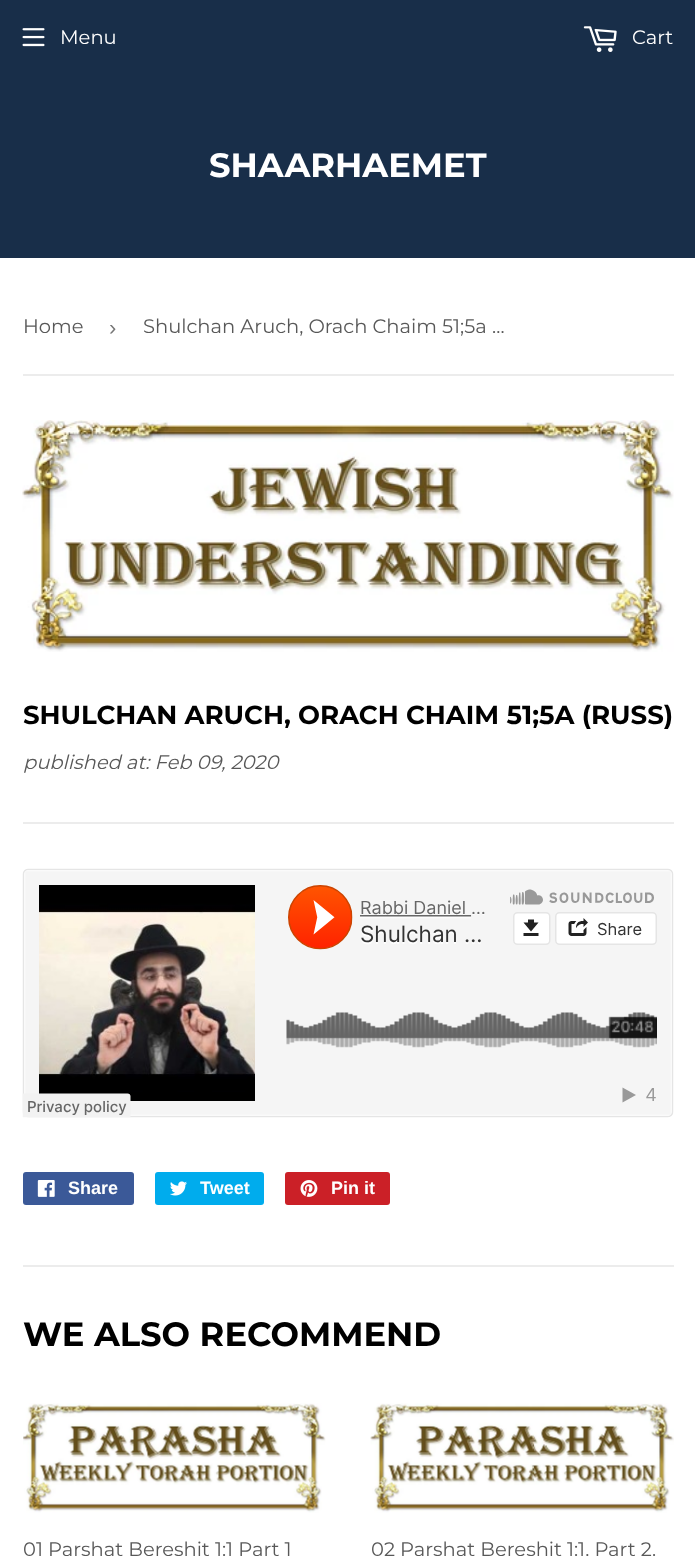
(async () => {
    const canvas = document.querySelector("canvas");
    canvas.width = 695;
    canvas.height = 1560;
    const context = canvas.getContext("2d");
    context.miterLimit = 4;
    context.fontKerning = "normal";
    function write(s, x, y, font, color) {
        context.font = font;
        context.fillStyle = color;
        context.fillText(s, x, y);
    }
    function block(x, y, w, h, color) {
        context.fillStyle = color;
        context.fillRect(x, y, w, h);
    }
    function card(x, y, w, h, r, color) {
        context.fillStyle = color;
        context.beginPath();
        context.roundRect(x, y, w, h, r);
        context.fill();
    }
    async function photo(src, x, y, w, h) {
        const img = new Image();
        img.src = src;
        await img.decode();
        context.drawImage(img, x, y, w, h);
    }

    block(0, 0, 695, 1560, "rgb(255, 255, 255)");
    block(0, 0, 695, 258, "rgb(24, 46, 73)");
    await photo("media/1.png", 22, 28, 23, 19);
    write("Menu", 60, 44, "19.5px Montserrat", "rgb(255, 255, 255)");
    await photo("media/2.png", 583, 26, 34, 26);
    write("Cart", 632, 44, "19.5px Montserrat", "rgb(255, 255, 255)");
    write("SHAARHAEMET", 209, 177, "bold 33.75px Montserrat", "rgb(255, 255, 255)");
    block(23, 374, 651, 2, "rgb(236, 236, 236)");
    write("Home", 23, 333, "19.5px Montserrat", "rgb(88, 88, 88)");
    write("›", 109, 335, "22px Liberation Sans", "rgb(118, 118, 118)");
    write("Shulchan Aruch, Orach Chaim 51;5a …", 143, 333, "19.5px Montserrat", "rgb(88, 88, 88)");
    await photo("media/3.png", 22, 420, 652, 232);
    write("SHULCHAN ARUCH, ORACH CHAIM 51;5A (RUSS)", 23, 724, "bold 26px Montserrat", "rgb(0, 0, 0)");
    write("published at: Feb 09, 2020", 23, 769, "italic 19.5px Montserrat", "rgb(88, 88, 88)");
    block(23, 822, 651, 2, "rgb(236, 236, 236)");
    await photo("media/4.png", 22, 868, 652, 250);
    card(23, 1172, 111, 33, 3, "rgb(59, 89, 152)");
    await photo("media/5.png", 37, 1180, 18, 17);
    write("Share", 68, 1194, "bold 18px Liberation Sans", "rgb(255, 255, 255)");
    card(155, 1172, 109, 33, 3, "rgb(0, 172, 237)");
    await photo("media/6.png", 170, 1181, 17, 15);
    write("Tweet", 200, 1194, "bold 18px Liberation Sans", "rgb(255, 255, 255)");
    card(285, 1172, 105, 33, 3, "rgb(203, 32, 39)");
    await photo("media/7.png", 300, 1180, 18, 17);
    write("Pin it", 331, 1194, "bold 18px Liberation Sans", "rgb(255, 255, 255)");
    block(23, 1265, 651, 2, "rgb(236, 236, 236)");
    write("WE ALSO RECOMMEND", 23, 1346, "bold 33.75px Montserrat", "rgb(0, 0, 0)");
    await photo("media/8.png", 23, 1403, 303, 110);
    write("01 Parshat Bereshit 1:1 Part 1", 23, 1556, "19.5px Montserrat", "rgb(88, 88, 88)");
    await photo("media/9.png", 370, 1403, 304, 110);
    write("02 Parshat Bereshit 1:1. Part 2.", 371, 1556, "19.5px Montserrat", "rgb(88, 88, 88)");
})();
